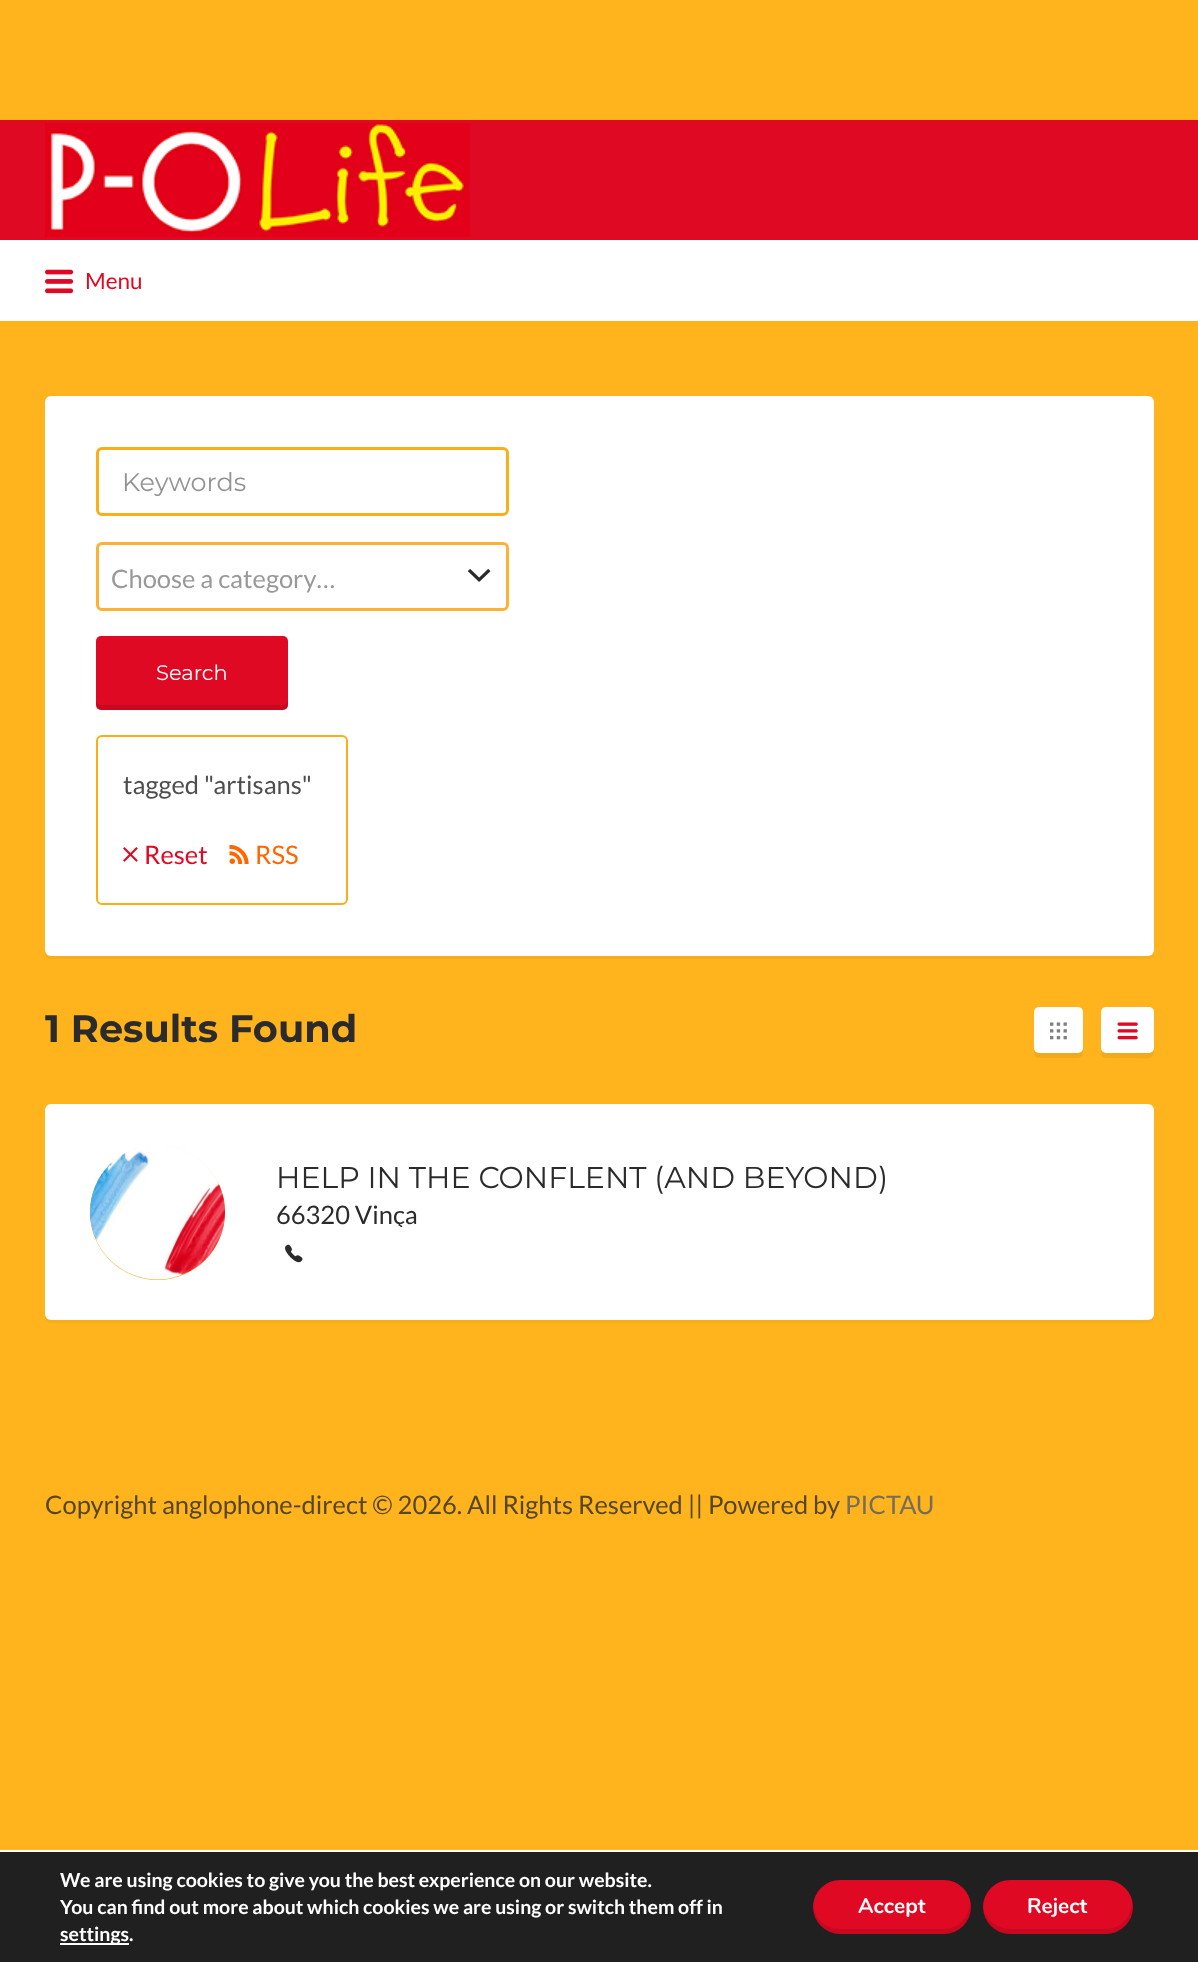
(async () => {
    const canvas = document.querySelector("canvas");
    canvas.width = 1198;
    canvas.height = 1962;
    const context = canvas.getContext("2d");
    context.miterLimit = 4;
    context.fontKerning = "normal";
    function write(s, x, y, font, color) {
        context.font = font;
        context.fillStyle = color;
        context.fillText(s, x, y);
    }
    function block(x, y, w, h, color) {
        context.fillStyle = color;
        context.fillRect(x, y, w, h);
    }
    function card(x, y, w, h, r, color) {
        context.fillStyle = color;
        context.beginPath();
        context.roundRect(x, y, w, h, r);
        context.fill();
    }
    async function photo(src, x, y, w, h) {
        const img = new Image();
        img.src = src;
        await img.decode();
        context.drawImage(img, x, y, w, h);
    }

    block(0, 0, 1198, 1962, "rgb(255, 179, 29)");
    block(0, 120, 1198, 120, "rgb(223, 9, 36)");
    await photo("media/1.png", 45, 123, 425, 114);
    block(0, 240, 1198, 81, "rgb(255, 255, 255)");
    await photo("media/2.png", 45, 269, 29, 25);
    write("Menu", 85, 289, "22.5px Lato", "rgb(223, 9, 36)");
    context.fillStyle = "rgb(247, 174, 28)";
    context.beginPath();
    context.moveTo(45, 950);
    context.lineTo(45, 953);
    context.bezierCurveTo(45, 956, 48, 959, 51, 959);
    context.lineTo(1148, 959);
    context.bezierCurveTo(1151, 959, 1154, 956, 1154, 953);
    context.lineTo(1154, 405);
    context.lineTo(1154, 403);
    context.lineTo(1154, 950);
    context.bezierCurveTo(1154, 953, 1151, 956, 1148, 956);
    context.lineTo(51, 956);
    context.bezierCurveTo(48, 956, 45, 953, 45, 950);
    context.closePath();
    context.fill();
    card(45, 396, 1109, 560, 6, "rgb(255, 255, 255)");
    context.beginPath();
    context.roundRect(97.5, 448.5, 410, 66, 4.5);
    context.strokeStyle = "rgb(250, 174, 24)";
    context.lineWidth = 3;
    context.stroke();
    write("Keywords", 122, 491, "25.5px Montserrat", "rgb(147, 147, 147)");
    context.beginPath();
    context.roundRect(97.5, 543.5, 410, 66, 4.5);
    context.strokeStyle = "rgb(253, 178, 53)";
    context.stroke();
    write("Choose a category…", 111, 588, "25.5px Lato", "rgb(153, 153, 153)");
    await photo("media/3.png", 468, 569, 23, 13);
    card(96, 636, 192, 74, 5, "rgb(223, 9, 36)");
    context.fillStyle = "rgba(0, 0, 0, 0.1)";
    context.beginPath();
    context.moveTo(96, 700);
    context.lineTo(96, 705);
    context.bezierCurveTo(96, 708, 98, 710, 101, 710);
    context.lineTo(283, 710);
    context.bezierCurveTo(286, 710, 288, 708, 288, 705);
    context.lineTo(288, 700);
    context.bezierCurveTo(288, 703, 286, 705, 284, 705);
    context.lineTo(100, 705);
    context.bezierCurveTo(98, 705, 96, 703, 96, 700);
    context.closePath();
    context.fill();
    write("Search", 156, 680, "21px Montserrat", "rgb(255, 255, 255)");
    context.beginPath();
    context.roundRect(97, 736, 250, 168, 5);
    context.strokeStyle = "rgb(250, 174, 24)";
    context.lineWidth = 2;
    context.stroke();
    write("tagged \"artisans\"", 123, 794, "25.5px Lato", "rgb(78, 78, 78)");
    await photo("media/4.png", 123, 847, 15, 15);
    write("Reset", 144, 864, "25.5px Lato", "rgb(223, 9, 36)");
    await photo("media/5.png", 229, 844, 20, 20);
    write("RSS", 255, 864, "25.5px Lato", "rgb(255, 102, 0)");
    write("1 Results Found", 45, 1042, "bold 38.25px Montserrat", "rgb(43, 43, 43)");
    context.fillStyle = "rgb(242, 170, 28)";
    context.beginPath();
    context.moveTo(1034, 1051);
    context.bezierCurveTo(1034, 1059, 1038, 1058, 1046, 1058);
    context.lineTo(1072, 1058);
    context.bezierCurveTo(1081, 1058, 1083, 1058, 1083, 1048);
    context.bezierCurveTo(1083, 1051, 1081, 1053, 1078, 1053);
    context.lineTo(1038, 1053);
    context.bezierCurveTo(1036, 1053, 1035, 1052, 1034, 1051);
    context.closePath();
    context.fill();
    card(1034, 1007, 49, 46, 5, "rgb(255, 255, 255)");
    await photo("media/6.png", 1050, 1022, 17, 18);
    context.fillStyle = "rgb(242, 170, 28)";
    context.beginPath();
    context.moveTo(1101, 1048);
    context.bezierCurveTo(1101, 1059, 1103, 1058, 1113, 1058);
    context.lineTo(1128, 1058);
    context.bezierCurveTo(1157, 1058, 1154, 1063, 1154, 1034);
    context.lineTo(1154, 1022);
    context.bezierCurveTo(1154, 1020, 1155, 1016, 1154, 1014);
    context.lineTo(1154, 1048);
    context.bezierCurveTo(1154, 1051, 1151, 1053, 1149, 1053);
    context.lineTo(1106, 1053);
    context.bezierCurveTo(1103, 1053, 1101, 1051, 1101, 1048);
    context.closePath();
    context.fill();
    card(1101, 1007, 53, 46, 5, "rgb(255, 255, 255)");
    await photo("media/7.png", 1117, 1022, 21, 18);
    context.fillStyle = "rgb(247, 174, 28)";
    context.beginPath();
    context.moveTo(45, 1314);
    context.lineTo(45, 1317);
    context.bezierCurveTo(45, 1320, 48, 1323, 51, 1323);
    context.lineTo(1148, 1323);
    context.bezierCurveTo(1151, 1323, 1154, 1320, 1154, 1317);
    context.lineTo(1154, 1113);
    context.lineTo(1154, 1111);
    context.lineTo(1154, 1314);
    context.bezierCurveTo(1154, 1317, 1151, 1320, 1148, 1320);
    context.lineTo(51, 1320);
    context.bezierCurveTo(48, 1320, 45, 1317, 45, 1314);
    context.closePath();
    context.fill();
    card(45, 1104, 1109, 216, 6, "rgb(255, 255, 255)");
    context.fillStyle = "rgb(245, 169, 19)";
    context.beginPath();
    context.arc(157.5, 1212.5, 67.5, 0, Math.PI * 2);
    context.fill();
    await photo("media/8.png", 90, 1145, 135, 135);
    write("HELP IN THE CONFLENT (AND BEYOND)", 276, 1188, "30px Montserrat", "rgb(43, 43, 43)");
    context.save();
    context.beginPath();
    context.rect(276, 1202, 612, 25);
    context.clip();
    write("66320 Vinça", 276, 1224, "25.5px Lato", "rgb(43, 43, 43)");
    context.restore();
    await photo("media/9.png", 285, 1244, 18, 19);
    write("Copyright anglophone-direct © 2026. All Rights Reserved || Powered by", 45, 1514, "25.5px Lato", "rgb(85, 70, 40)");
    write("PICTAU", 845, 1514, "25.5px Lato", "rgb(116, 109, 91)");
    block(0, 1852, 1198, 110, "rgb(32, 32, 32)");
    block(0, 1850, 1198, 2, "rgb(255, 255, 255)");
    write("We are using cookies to give you the best experience on our website.", 60, 1887, "bold 19.5px Lato", "rgb(255, 255, 255)");
    write("You can find out more about which cookies we are using or switch them off in", 60, 1914, "bold 19.5px Lato", "rgb(255, 255, 255)");
    block(60, 1943, 69, 2, "rgb(255, 255, 255)");
    write("settings.", 60, 1941, "bold 19.5px Lato", "rgb(255, 255, 255)");
    card(813, 1880, 158, 54, 27, "rgb(223, 9, 36)");
    context.fillStyle = "rgba(0, 0, 0, 0.1)";
    context.beginPath();
    context.moveTo(813, 1905);
    context.lineTo(813, 1907);
    context.bezierCurveTo(813, 1922, 825, 1934, 840, 1934);
    context.lineTo(944, 1934);
    context.bezierCurveTo(959, 1934, 971, 1922, 971, 1907);
    context.bezierCurveTo(971, 1904, 971, 1902, 970, 1899);
    context.lineTo(970, 1902);
    context.bezierCurveTo(970, 1917, 958, 1929, 944, 1929);
    context.lineTo(840, 1929);
    context.bezierCurveTo(826, 1929, 814, 1918, 813, 1905);
    context.closePath();
    context.fill();
    write("Accept", 858, 1913, "bold 21px Nunito", "rgb(255, 255, 255)");
    card(983, 1880, 150, 54, 27, "rgb(223, 9, 36)");
    context.fillStyle = "rgba(0, 0, 0, 0.1)";
    context.beginPath();
    context.moveTo(983, 1909);
    context.bezierCurveTo(984, 1923, 996, 1934, 1010, 1934);
    context.lineTo(1106, 1934);
    context.bezierCurveTo(1121, 1934, 1133, 1922, 1133, 1907);
    context.bezierCurveTo(1133, 1904, 1133, 1902, 1132, 1899);
    context.lineTo(1132, 1902);
    context.bezierCurveTo(1132, 1917, 1120, 1929, 1106, 1929);
    context.lineTo(1010, 1929);
    context.bezierCurveTo(998, 1929, 987, 1921, 983, 1909);
    context.closePath();
    context.fill();
    write("Reject", 1027, 1913, "bold 21px Nunito", "rgb(255, 255, 255)");
})();
